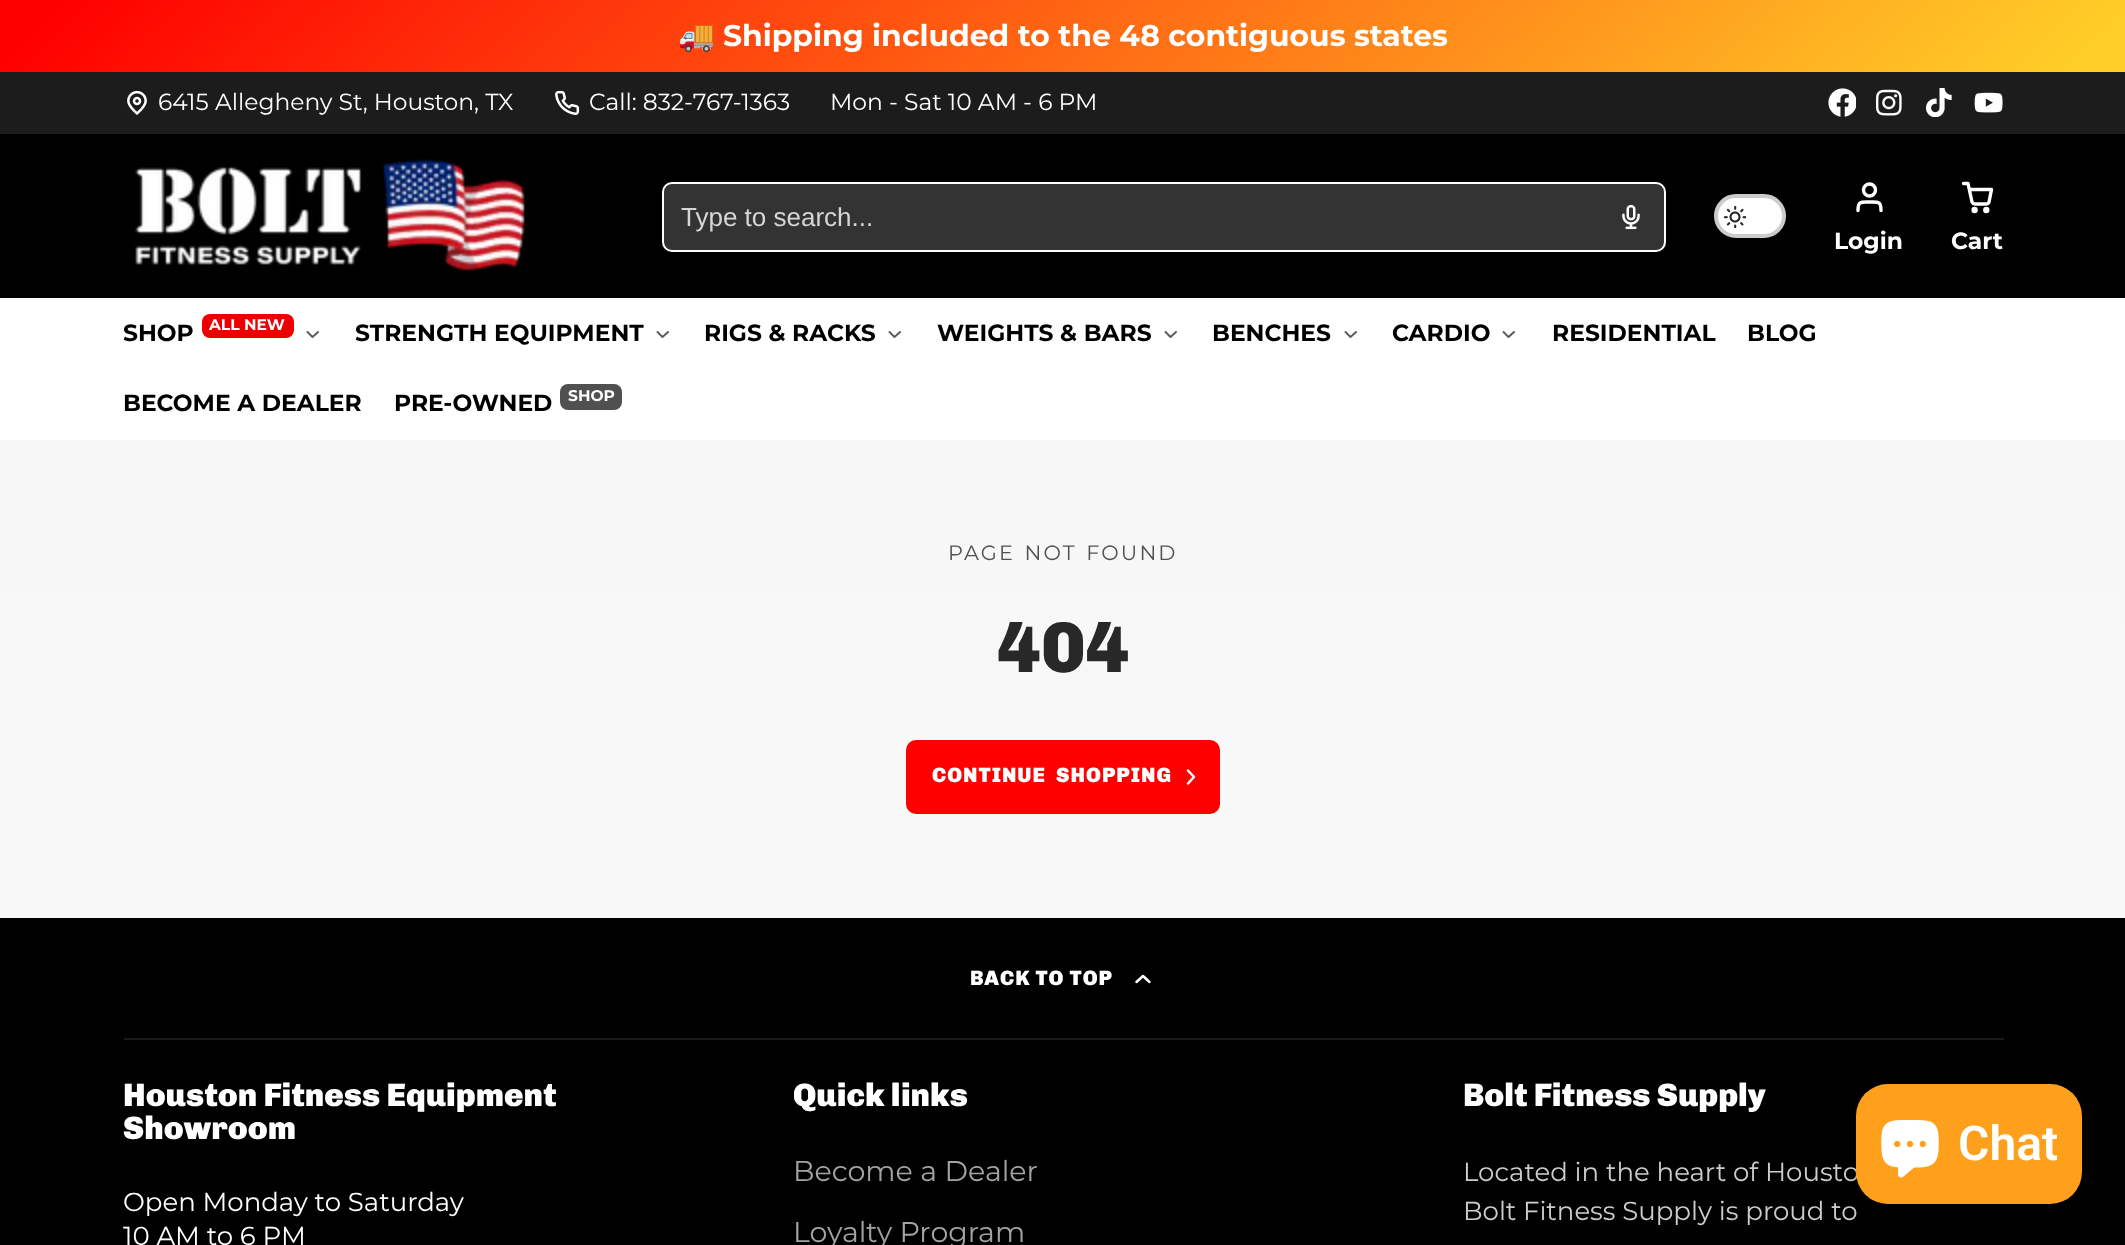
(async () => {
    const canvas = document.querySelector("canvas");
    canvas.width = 2125;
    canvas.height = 1245;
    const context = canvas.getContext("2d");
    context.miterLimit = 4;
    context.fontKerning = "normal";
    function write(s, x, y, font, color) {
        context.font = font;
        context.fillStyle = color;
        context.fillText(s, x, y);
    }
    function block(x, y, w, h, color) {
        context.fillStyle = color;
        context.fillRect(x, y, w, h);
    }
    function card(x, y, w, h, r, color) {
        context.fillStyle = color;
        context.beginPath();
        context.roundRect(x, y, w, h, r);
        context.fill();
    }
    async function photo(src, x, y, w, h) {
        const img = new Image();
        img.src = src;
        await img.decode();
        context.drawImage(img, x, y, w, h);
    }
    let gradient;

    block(0, 0, 2125, 1245, "rgb(255, 255, 255)");
    gradient = context.createLinearGradient(1063, 0, 1063, 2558);
    gradient.addColorStop(0, "rgb(245, 245, 245)");
    gradient.addColorStop(0.99, "rgb(255, 255, 255)");
    context.fillStyle = gradient;
    context.fillRect(0, 440, 2125, 478);
    gradient = context.createLinearGradient(532, -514, 1594, 586);
    gradient.addColorStop(0.03, "rgb(255, 0, 0)");
    gradient.addColorStop(0.97, "rgb(255, 205, 39)");
    context.fillStyle = gradient;
    context.fillRect(0, 0, 2125, 72);
    write("🚚", 678, 46, "bold 29.9px Noto Color Emoji", "rgb(255, 255, 255)");
    write("Shipping included to the 48 contiguous states", 723, 46, "bold 29.9px Montserrat", "rgb(255, 255, 255)");
    block(0, 72, 2125, 62, "rgb(28, 28, 28)");
    await photo("media/1.png", 127, 90, 20, 25);
    write("6415 Allegheny St, Houston, TX", 158, 110, "23.4px Montserrat", "rgb(255, 255, 255)");
    await photo("media/2.png", 555, 90, 25, 25);
    write("Call: 832-767-1363", 589, 110, "23.4px Montserrat", "rgb(255, 255, 255)");
    write("Mon - Sat 10 AM - 6 PM", 830, 110, "23.4px Montserrat", "rgb(255, 255, 255)");
    await photo("media/3.png", 1828, 88, 28, 29);
    await photo("media/4.png", 1876, 89, 26, 27);
    await photo("media/5.png", 1926, 88, 26, 29);
    await photo("media/6.png", 1974, 92, 29, 21);
    block(0, 134, 2125, 164, "rgb(0, 0, 0)");
    await photo("media/7.png", 135, 159, 390, 112);
    context.fillStyle = "rgb(51, 51, 51)";
    context.beginPath();
    context.roundRect(663, 183, 1002, 68, 9);
    context.fill();
    context.strokeStyle = "rgb(255, 255, 255)";
    context.lineWidth = 2;
    context.stroke();
    write("Type to search...", 681, 226, "26px Liberation Sans", "rgb(214, 214, 214)");
    await photo("media/8.png", 1622, 205, 18, 25);
    context.fillStyle = "rgb(255, 255, 255)";
    context.beginPath();
    context.roundRect(1716, 196, 68, 40, 20);
    context.fill();
    context.strokeStyle = "rgb(204, 204, 204)";
    context.lineWidth = 4;
    context.stroke();
    await photo("media/9.png", 1724, 206, 22, 22);
    context.beginPath();
    context.moveTo(1881, 210.5);
    context.bezierCurveTo(1881, 201, 1878, 202, 1869.5, 202);
    context.bezierCurveTo(1861, 202, 1858, 201, 1858, 210.5);
    context.strokeStyle = "rgb(255, 255, 255)";
    context.lineWidth = 3.4;
    context.lineCap = "round";
    context.lineJoin = "round";
    context.stroke();
    context.beginPath();
    context.arc(1869.5, 190, 6, 0, Math.PI * 2);
    context.stroke();
    write("Login", 1834, 249, "bold 23.4px Montserrat", "rgb(255, 255, 255)");
    context.beginPath();
    context.arc(1974.6, 210, 1.5, 0, Math.PI * 2);
    context.stroke();
    context.beginPath();
    context.arc(1986.3, 210, 1.5, 0, Math.PI * 2);
    context.stroke();
    context.beginPath();
    context.moveTo(1963.5, 183.5);
    context.lineTo(1968, 183.5);
    context.lineTo(1972, 202);
    context.bezierCurveTo(1972.5, 203, 1973.5, 204, 1975, 204);
    context.lineTo(1986, 204);
    context.bezierCurveTo(1987.5, 204, 1989, 203, 1989, 202);
    context.lineTo(1991.5, 189.5);
    context.lineTo(1970.5, 189.5);
    context.stroke();
    write("Cart", 1951, 249, "bold 23.4px Montserrat", "rgb(255, 255, 255)");
    write("SHOP", 123, 341, "bold 23.4px Montserrat", "rgb(0, 0, 0)");
    card(202, 314, 92, 24, 8, "rgb(236, 0, 0)");
    write("ALL NEW", 209, 330, "bold 15.5px Montserrat", "rgb(255, 255, 255)");
    context.beginPath();
    context.moveTo(307.5, 332);
    context.lineTo(312.5, 337);
    context.lineTo(318, 332);
    context.strokeStyle = "rgb(92, 92, 92)";
    context.lineWidth = 2;
    context.stroke();
    write("STRENGTH EQUIPMENT", 355, 341, "bold 23.4px Montserrat", "rgb(0, 0, 0)");
    context.beginPath();
    context.moveTo(657.5, 332);
    context.lineTo(662.5, 337);
    context.lineTo(668, 332);
    context.stroke();
    write("RIGS & RACKS", 704, 341, "bold 23.4px Montserrat", "rgb(0, 0, 0)");
    context.beginPath();
    context.moveTo(889.5, 332);
    context.lineTo(894.5, 337);
    context.lineTo(900, 332);
    context.stroke();
    write("WEIGHTS & BARS", 937, 341, "bold 23.4px Montserrat", "rgb(0, 0, 0)");
    context.beginPath();
    context.moveTo(1165.5, 332);
    context.lineTo(1170.5, 337);
    context.lineTo(1176, 332);
    context.stroke();
    write("BENCHES", 1212, 341, "bold 23.4px Montserrat", "rgb(0, 0, 0)");
    context.beginPath();
    context.moveTo(1345.5, 332);
    context.lineTo(1350.5, 337);
    context.lineTo(1356, 332);
    context.stroke();
    write("CARDIO", 1392, 341, "bold 23.4px Montserrat", "rgb(0, 0, 0)");
    context.beginPath();
    context.moveTo(1503.5, 332);
    context.lineTo(1508.5, 337);
    context.lineTo(1514, 332);
    context.stroke();
    write("RESIDENTIAL", 1552, 341, "bold 23.4px Montserrat", "rgb(0, 0, 0)");
    write("BLOG", 1747, 341, "bold 23.4px Montserrat", "rgb(0, 0, 0)");
    write("BECOME A DEALER", 123, 411, "bold 23.4px Montserrat", "rgb(0, 0, 0)");
    write("PRE-OWNED", 394, 411, "bold 23.4px Montserrat", "rgb(0, 0, 0)");
    card(560, 384, 62, 26, 8, "rgb(80, 80, 80)");
    write("SHOP", 568, 401, "bold 15.5px Montserrat", "rgb(255, 255, 255)");
    context.letterSpacing = "2.1px";
    context.wordSpacing = "2px";
    write("PAGE NOT FOUND", 948, 560, "20.75px Montserrat", "rgb(81, 81, 81)");
    context.letterSpacing = "0px";
    context.wordSpacing = "0px";
    write("404", 997, 672, "900 72px Chivo", "rgb(40, 40, 40)");
    card(906, 740, 314, 74, 10, "rgb(255, 0, 0)");
    context.letterSpacing = "1px";
    context.wordSpacing = "5px";
    write("CONTINUE SHOPPING", 932, 782, "900 20.75px Chivo", "rgb(255, 255, 255)");
    context.beginPath();
    context.moveTo(1188, 783.5);
    context.lineTo(1194, 777);
    context.lineTo(1188, 770.5);
    context.strokeStyle = "rgb(255, 255, 255)";
    context.lineWidth = 2.5;
    context.stroke();
    block(0, 918, 2125, 327, "rgb(0, 0, 0)");
    context.wordSpacing = "0px";
    write("BACK TO TOP", 970, 985, "900 20.75px Chivo", "rgb(255, 255, 255)");
    context.beginPath();
    context.moveTo(1149.5, 982);
    context.lineTo(1143, 976);
    context.lineTo(1136.5, 982);
    context.stroke();
    block(124, 1038, 1880, 2, "rgb(26, 26, 26)");
    context.letterSpacing = "0px";
    write("Houston Fitness Equipment", 123, 1106, "900 32.5px Chivo", "rgb(255, 255, 255)");
    write("Showroom", 123, 1139, "900 32.5px Chivo", "rgb(255, 255, 255)");
    write("Open Monday to Saturday", 123, 1211, "26px Montserrat", "rgb(255, 255, 255)");
    write("10 AM to 6 PM", 123, 1245, "26px Montserrat", "rgb(255, 255, 255)");
    write("Quick links", 793, 1106, "900 32.5px Chivo", "rgb(255, 255, 255)");
    write("Become a Dealer", 793, 1181, "28.5px Montserrat", "rgb(163, 163, 163)");
    write("Loyalty Program", 793, 1242, "28.5px Montserrat", "rgb(163, 163, 163)");
    write("Bolt Fitness Supply", 1463, 1106, "900 32.5px Chivo", "rgb(255, 255, 255)");
    write("Located in the heart of Housto", 1463, 1181, "26px Montserrat", "rgb(204, 204, 204)");
    write("Bolt Fitness Supply is proud to", 1463, 1220, "26px Montserrat", "rgb(204, 204, 204)");
    context.fillStyle = "rgba(0, 0, 0, 0.15)";
    context.filter = "blur(5px)";
    context.beginPath();
    context.roundRect(1856, 1084, 226, 120, 32);
    context.fill();
    context.filter = "none";
    card(1856, 1084, 226, 120, 32, "rgb(255, 160, 28)");
    await photo("media/10.png", 1881, 1120, 58, 58);
    write("Chat", 1958, 1160, "600 48px Roboto", "rgb(255, 255, 255)");
})();
